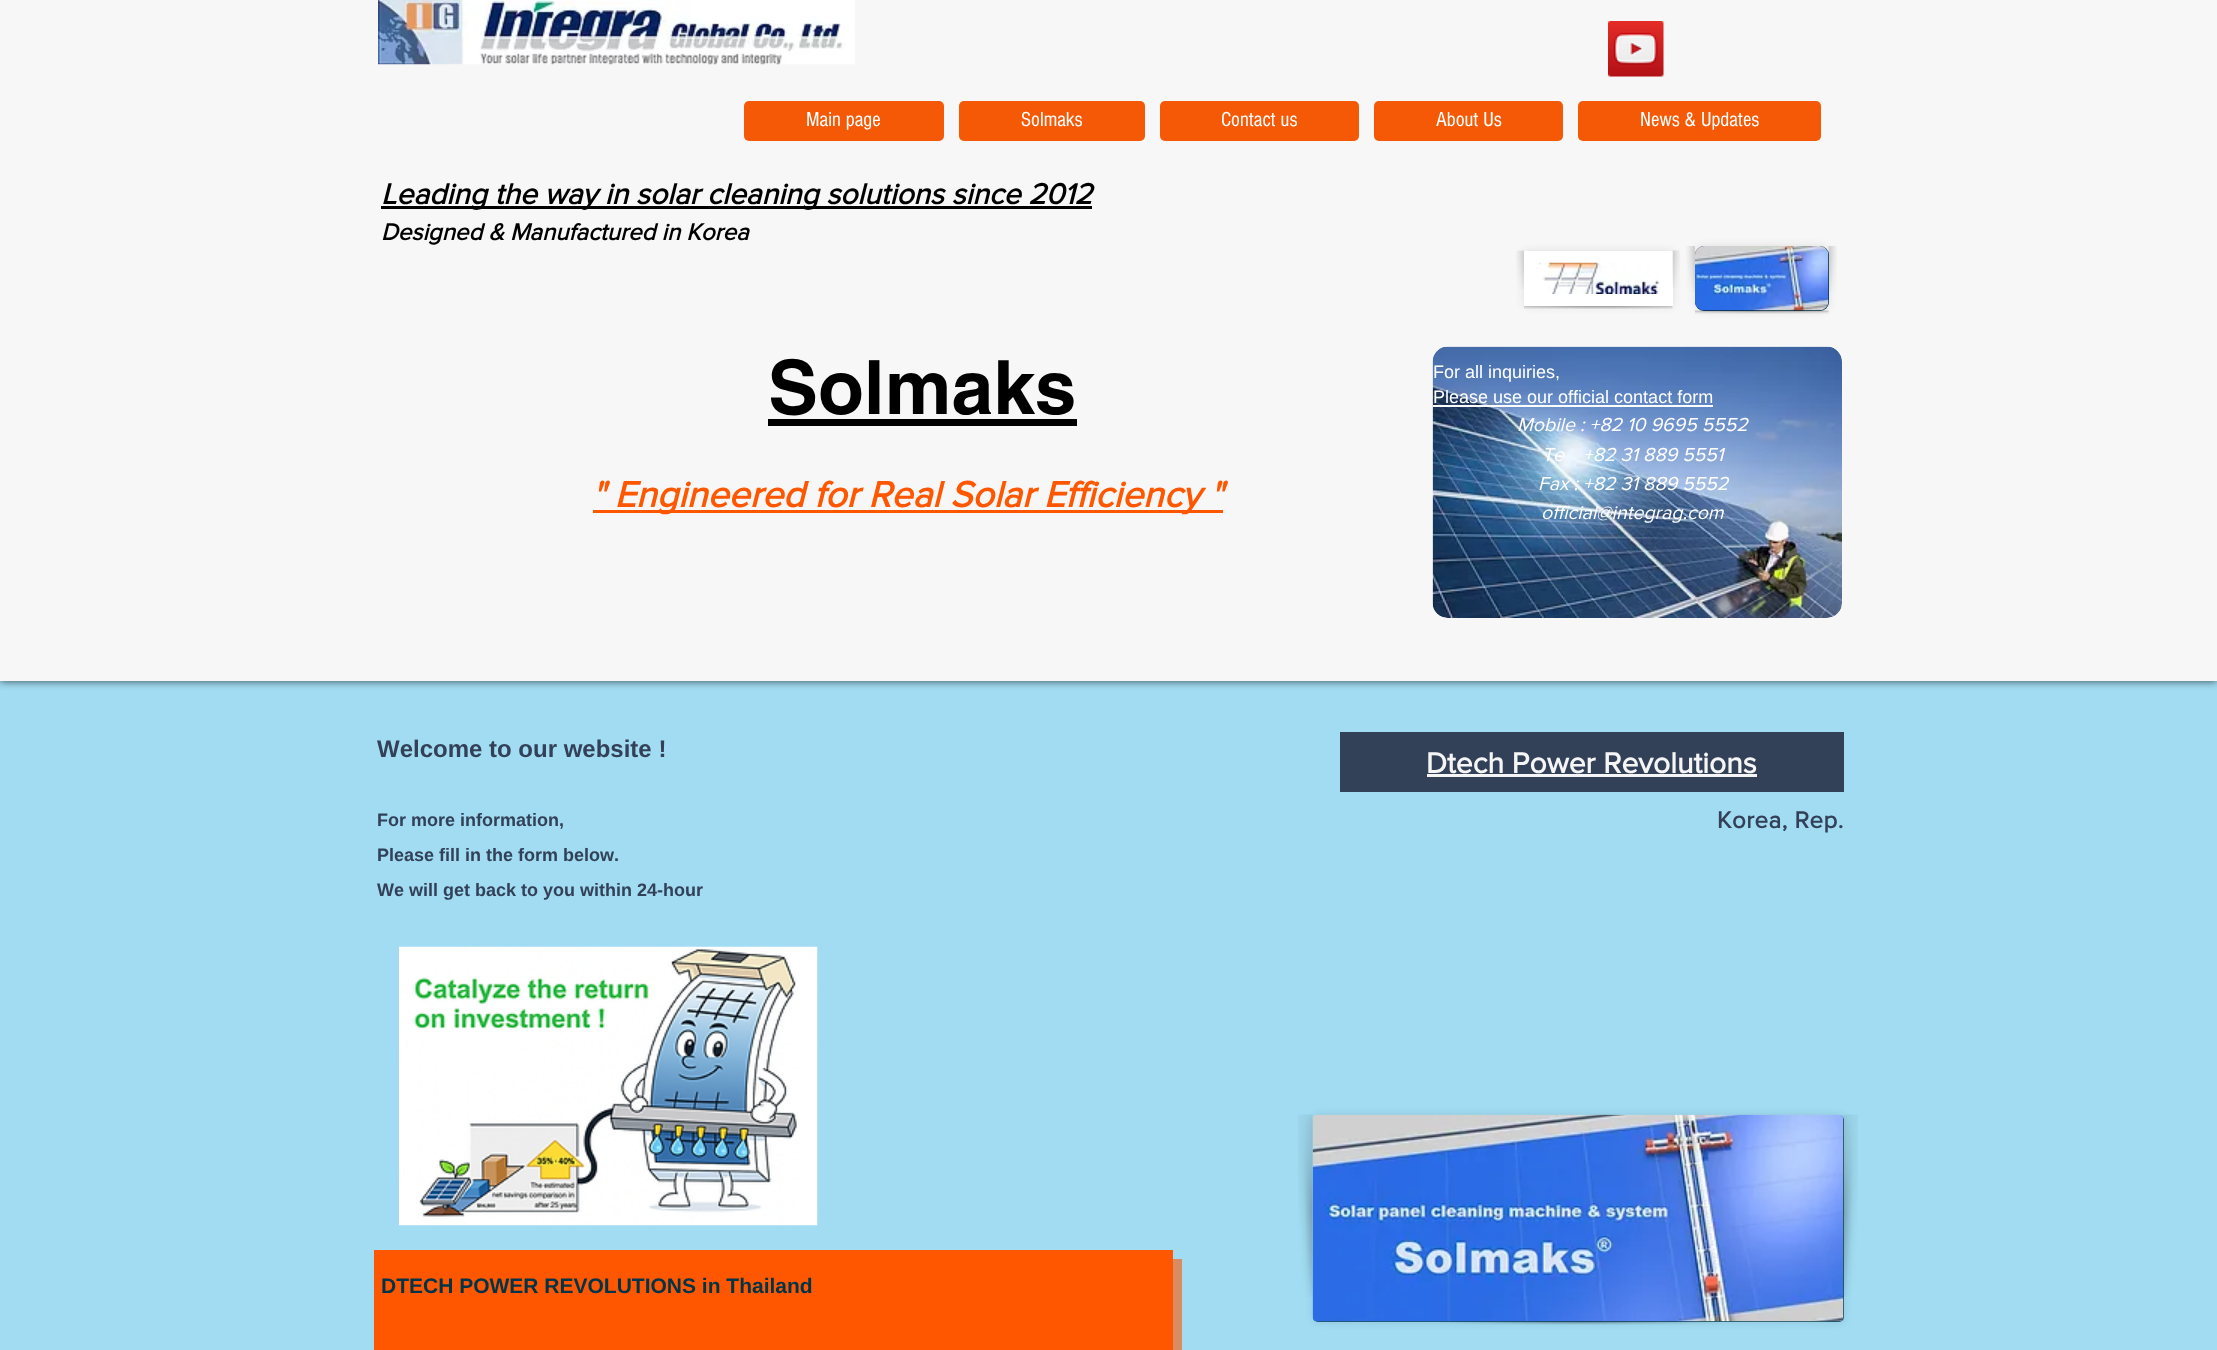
(async () => {
    const canvas = document.querySelector("canvas");
    canvas.width = 2217;
    canvas.height = 1350;
    const context = canvas.getContext("2d");
    context.miterLimit = 4;
    context.fontKerning = "none";
    function write(s, x, y, font, color) {
        context.font = font;
        context.fillStyle = color;
        context.fillText(s, x, y);
    }
    function block(x, y, w, h, color) {
        context.fillStyle = color;
        context.fillRect(x, y, w, h);
    }
    function card(x, y, w, h, r, color) {
        context.fillStyle = color;
        context.beginPath();
        context.roundRect(x, y, w, h, r);
        context.fill();
    }
    async function photo(src, x, y, w, h) {
        const img = new Image();
        img.src = src;
        await img.decode();
        context.drawImage(img, x, y, w, h);
    }

    block(0, 0, 2217, 1350, "rgb(161, 220, 242)");
    context.fillStyle = "rgba(0, 0, 0, 0.7)";
    context.filter = "blur(4px)";
    context.beginPath();
    context.rect(0, 0, 2217, 681);
    context.fill();
    context.filter = "none";
    block(0, 0, 2217, 681, "rgb(247, 247, 247)");
    await photo("media/1.png", 378, 0, 477, 65);
    await photo("media/2.png", 1608, 21, 56, 56);
    card(744, 101, 200, 40, 5, "rgb(245, 89, 5)");
    write("Main page", 806, 126, "21px 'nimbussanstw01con'", "rgb(255, 255, 255)");
    card(959, 101, 186, 40, 5, "rgb(245, 89, 5)");
    write("Solmaks", 1021, 126, "21px 'nimbussanstw01con'", "rgb(255, 255, 255)");
    card(1160, 101, 199, 40, 5, "rgb(245, 89, 5)");
    write("Contact us", 1221, 126, "21px 'nimbussanstw01con'", "rgb(255, 255, 255)");
    card(1374, 101, 189, 40, 5, "rgb(245, 89, 5)");
    write("About Us", 1436, 126, "21px 'nimbussanstw01con'", "rgb(255, 255, 255)");
    card(1578, 101, 243, 40, 5, "rgb(245, 89, 5)");
    write("News & Updates", 1640, 126, "21px 'nimbussanstw01con'", "rgb(255, 255, 255)");
    block(381, 206, 711, 3, "rgb(0, 0, 0)");
    write("Leading the way in solar cleaning solutions since 2012", 381, 204, "italic bold 30px 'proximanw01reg'", "rgb(0, 0, 0)");
    write("Designed & Manufactured in Korea", 381, 240, "italic bold 24px 'proximanw01reg'", "rgb(0, 0, 0)");
    context.fillStyle = "rgba(0, 0, 0, 0.1)";
    context.filter = "blur(4px)";
    context.beginPath();
    context.rect(1524, 251, 149, 55);
    context.fill();
    context.filter = "none";
    block(1524, 251, 149, 55, "rgb(255, 255, 255)");
    await photo("media/3.png", 1536, 262, 124, 32);
    await photo("media/4.png", 1524, 306, 149, 3);
    await photo("media/5.png", 1516, 250, 8, 39);
    await photo("media/6.png", 1672, 250, 8, 38);
    context.fillStyle = "rgba(0, 0, 0, 0.1)";
    context.filter = "blur(4px)";
    context.beginPath();
    context.roundRect(1695, 246, 134, 65, 9);
    context.fill();
    context.filter = "none";
    card(1695, 246, 134, 65, 9, "rgb(0, 52, 72)");
    await photo("media/7.png", 1695, 246, 134, 65);
    await photo("media/8.png", 1695, 310, 134, 4);
    await photo("media/9.png", 1686, 246, 9, 46);
    await photo("media/10.png", 1828, 246, 9, 46);
    write("Solmaks", 768, 414, "bold 75px helvetica", "rgb(0, 0, 0)");
    block(768, 419, 309, 7, "rgb(0, 0, 0)");
    await photo("media/11.png", 1432, 346, 410, 272);
    write("For all inquiries,", 1433, 378, "18px Liberation Sans", "rgb(255, 255, 255)");
    write("Please use our official contact form", 1433, 403, "18px Liberation Sans", "rgb(255, 255, 255)");
    block(1433, 405, 280, 2, "rgb(255, 255, 255)");
    write("Mobile : +82 10 9695 5552", 1517, 431, "italic 19.5px 'proximanw01reg'", "rgb(255, 255, 255)");
    write("Te", 1542, 461, "italic 19.5px 'proximanw01reg'", "rgb(255, 255, 255)");
    write("+82 31 889 5551", 1583, 461, "italic 19.5px 'proximanw01reg'", "rgb(255, 255, 255)");
    write("Fax : +82 31 889 5552", 1538, 490, "italic 19.5px 'proximanw01reg'", "rgb(255, 255, 255)");
    write("official@integrag.com", 1541, 519, "italic 19.5px 'proximanw01reg'", "rgb(255, 255, 255)");
    block(593, 510, 630, 3, "rgb(255, 87, 0)");
    write("\" Engineered for Real Solar Efficiency \"", 592, 507, "italic bold 37.5px 'proximanw01reg'", "rgb(255, 87, 0)");
    write("Welcome to our website !", 377, 757, "bold 24px Liberation Sans", "rgb(50, 65, 88)");
    write("For more information,", 377, 826, "bold 18px Liberation Sans", "rgb(50, 65, 88)");
    write("Please fill in the form below.", 377, 861, "bold 18px Liberation Sans", "rgb(50, 65, 88)");
    write("We will get back to you within 24-hour", 377, 896, "bold 18px Liberation Sans", "rgb(50, 65, 88)");
    block(1340, 732, 504, 60, "rgb(50, 65, 88)");
    write("Dtech Power Revolutions", 1426, 773, "bold 30px 'proximanw01reg'", "rgb(245, 245, 245)");
    block(1427, 774, 330, 3, "rgb(245, 245, 245)");
    context.letterSpacing = "0.5px";
    write("Korea, Rep.", 1717, 828, "bold 24px 'proximanw01reg'", "rgb(50, 65, 88)");
    await photo("media/12.png", 399, 946, 419, 280);
    context.fillStyle = "rgba(0, 0, 0, 0.1)";
    context.filter = "blur(4px)";
    context.beginPath();
    context.roundRect(1313, 1115, 531, 207, 5);
    context.fill();
    context.filter = "none";
    card(1313, 1115, 531, 207, 5, "rgba(0, 52, 72, 0.78)");
    await photo("media/13.png", 1312, 1114, 532, 208);
    await photo("media/14.png", 1440, 1321, 276, 4);
    await photo("media/15.png", 1298, 1114, 15, 183);
    await photo("media/16.png", 1843, 1114, 15, 183);
    context.fillStyle = "rgb(217, 140, 97)";
    context.beginPath();
    context.moveTo(383, 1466);
    context.lineTo(383, 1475);
    context.lineTo(1182, 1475);
    context.lineTo(1182, 1259);
    context.lineTo(1173, 1259);
    context.lineTo(1173, 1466);
    context.closePath();
    context.fill();
    block(374, 1250, 799, 100, "rgb(255, 87, 0)");
    context.letterSpacing = "0px";
    write("DTECH POWER REVOLUTIONS in Thailand", 381, 1293, "bold 21px Liberation Sans", "rgb(0, 52, 72)");
})();
